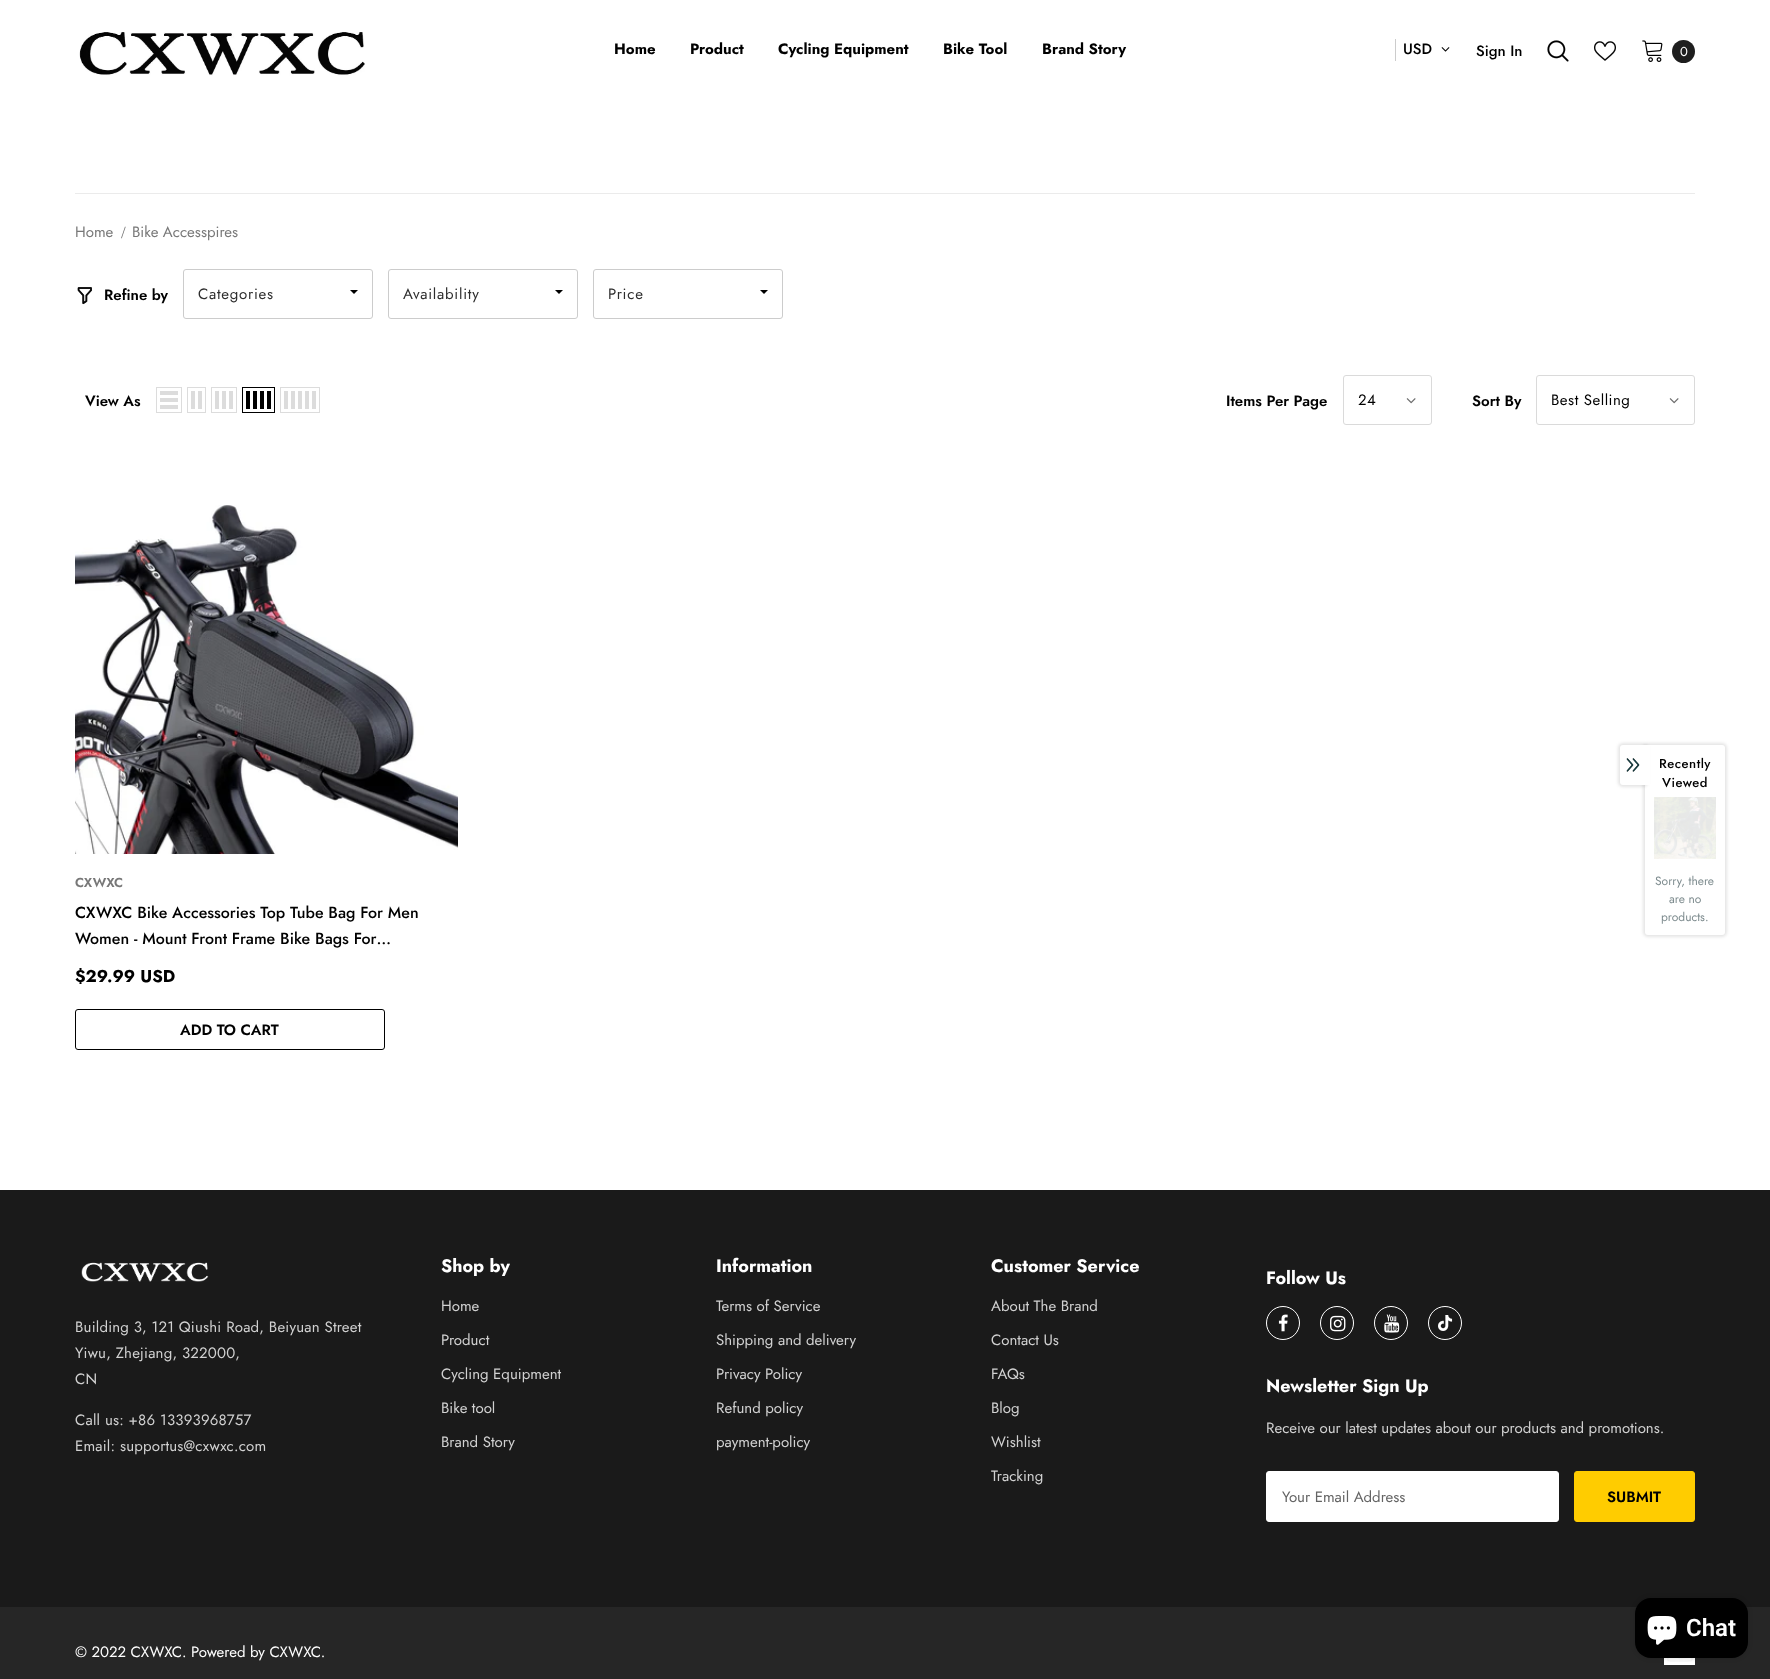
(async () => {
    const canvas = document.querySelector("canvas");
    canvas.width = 1770;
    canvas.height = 1679;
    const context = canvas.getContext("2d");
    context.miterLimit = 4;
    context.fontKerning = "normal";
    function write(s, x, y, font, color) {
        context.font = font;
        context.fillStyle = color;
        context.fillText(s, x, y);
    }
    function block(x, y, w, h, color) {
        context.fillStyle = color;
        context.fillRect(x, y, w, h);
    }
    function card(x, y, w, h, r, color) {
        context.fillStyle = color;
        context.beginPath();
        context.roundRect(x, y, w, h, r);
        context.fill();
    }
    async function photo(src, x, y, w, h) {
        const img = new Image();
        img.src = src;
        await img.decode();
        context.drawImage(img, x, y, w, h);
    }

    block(0, 0, 1770, 1679, "rgb(255, 255, 255)");
    await photo("media/1.png", 79, 32, 286, 44);
    write("Home", 614, 54, "bold 15px Jost", "rgb(0, 0, 0)");
    write("Product", 690, 54, "bold 15px Jost", "rgb(0, 0, 0)");
    write("Cycling Equipment", 778, 54, "bold 15px Jost", "rgb(0, 0, 0)");
    write("Bike Tool", 943, 54, "bold 15px Jost", "rgb(0, 0, 0)");
    write("Brand Story", 1042, 54, "bold 15px Jost", "rgb(0, 0, 0)");
    block(1395, 39, 1, 22, "rgb(204, 204, 204)");
    write("USD", 1403, 54, "500 15px Jost", "rgb(0, 0, 0)");
    await photo("media/2.png", 1441, 47, 9, 5);
    write("Sign In", 1476, 56, "500 15px Jost", "rgb(0, 0, 0)");
    await photo("media/3.png", 1547, 40, 22, 22);
    await photo("media/4.png", 1594, 41, 22, 20);
    await photo("media/5.png", 1642, 40, 21, 22);
    context.fillStyle = "rgb(30, 30, 30)";
    context.beginPath();
    context.arc(1683.5, 51.5, 11.5, 0, Math.PI * 2);
    context.fill();
    write("0", 1680, 56, "13px Jost", "rgb(255, 255, 255)");
    block(75, 193, 1620, 1, "rgb(235, 235, 235)");
    write("Home", 75, 237, "15px Jost", "rgb(120, 120, 120)");
    write("/", 121, 238, "17px Liberation Serif", "rgb(120, 120, 120)");
    write("Bike Accesspires", 132, 237, "15px Jost", "rgb(120, 120, 120)");
    await photo("media/6.png", 77, 287, 15, 18);
    write("Refine by", 104, 300, "600 15px Jost", "rgb(0, 0, 0)");
    context.beginPath();
    context.roundRect(183.5, 269.5, 189, 49, 2.5);
    context.strokeStyle = "rgb(204, 204, 204)";
    context.stroke();
    context.letterSpacing = "0.75px";
    write("Categories", 198, 299, "15px Jost", "rgb(45, 45, 45)");
    context.fillStyle = "rgb(0, 0, 0)";
    context.beginPath();
    context.moveTo(350, 290);
    context.lineTo(358, 290);
    context.lineTo(354, 294);
    context.closePath();
    context.fill();
    context.beginPath();
    context.roundRect(388.5, 269.5, 189, 49, 2.5);
    context.stroke();
    write("Availability", 403, 299, "15px Jost", "rgb(45, 45, 45)");
    context.fillStyle = "rgb(0, 0, 0)";
    context.beginPath();
    context.moveTo(555, 290);
    context.lineTo(563, 290);
    context.lineTo(559, 294);
    context.closePath();
    context.fill();
    context.beginPath();
    context.roundRect(593.5, 269.5, 189, 49, 2.5);
    context.stroke();
    write("Price", 608, 299, "15px Jost", "rgb(45, 45, 45)");
    context.fillStyle = "rgb(0, 0, 0)";
    context.beginPath();
    context.moveTo(760, 290);
    context.lineTo(768, 290);
    context.lineTo(764, 294);
    context.closePath();
    context.fill();
    context.letterSpacing = "0px";
    write("View As", 85, 406, "600 15px Jost", "rgb(0, 0, 0)");
    context.strokeStyle = "rgb(220, 220, 220)";
    context.strokeRect(156.5, 387.5, 25, 25);
    block(160, 405, 18, 4, "rgb(220, 220, 220)");
    block(160, 398, 18, 4, "rgb(220, 220, 220)");
    block(160, 391, 18, 4, "rgb(220, 220, 220)");
    context.strokeRect(187.5, 387.5, 18, 25);
    block(198, 391, 4, 18, "rgb(220, 220, 220)");
    block(191, 391, 4, 18, "rgb(220, 220, 220)");
    context.strokeRect(211.5, 387.5, 25, 25);
    block(229, 391, 4, 18, "rgb(220, 220, 220)");
    block(222, 391, 4, 18, "rgb(220, 220, 220)");
    block(215, 391, 4, 18, "rgb(220, 220, 220)");
    context.strokeStyle = "rgb(0, 0, 0)";
    context.strokeRect(242.5, 387.5, 32, 25);
    block(267, 391, 4, 18, "rgb(0, 0, 0)");
    block(260, 391, 4, 18, "rgb(0, 0, 0)");
    block(253, 391, 4, 18, "rgb(0, 0, 0)");
    block(246, 391, 4, 18, "rgb(0, 0, 0)");
    context.strokeStyle = "rgb(220, 220, 220)";
    context.strokeRect(280.5, 387.5, 39, 25);
    block(312, 391, 4, 18, "rgb(220, 220, 220)");
    block(305, 391, 4, 18, "rgb(220, 220, 220)");
    block(298, 391, 4, 18, "rgb(220, 220, 220)");
    block(291, 391, 4, 18, "rgb(220, 220, 220)");
    block(284, 391, 4, 18, "rgb(220, 220, 220)");
    write("Items Per Page", 1226, 406, "600 15px Jost", "rgb(0, 0, 0)");
    context.beginPath();
    context.roundRect(1343.5, 375.5, 88, 49, 2.5);
    context.strokeStyle = "rgb(218, 218, 218)";
    context.stroke();
    context.letterSpacing = "0.5px";
    write("24", 1358, 405, "15px Jost", "rgb(0, 0, 0)");
    await photo("media/7.png", 1406, 398, 10, 6);
    context.letterSpacing = "0px";
    write("Sort By", 1472, 406, "600 15px Jost", "rgb(0, 0, 0)");
    context.beginPath();
    context.roundRect(1536.5, 375.5, 158, 49, 2.5);
    context.stroke();
    context.letterSpacing = "0.5px";
    write("Best Selling", 1551, 405, "15px Jost", "rgb(0, 0, 0)");
    await photo("media/7.png", 1669, 398, 10, 6);
    await photo("media/8.png", 75, 505, 383, 349);
    context.letterSpacing = "0px";
    write("CXWXC", 75, 887, "600 13px Jost", "rgb(120, 120, 120)");
    write("CXWXC Bike Accessories Top Tube Bag For Men", 75, 918, "500 16px Jost", "rgb(0, 0, 0)");
    write("Women - Mount Front Frame Bike Bags For…", 75, 944, "500 16px Jost", "rgb(0, 0, 0)");
    write("$29.99 USD", 75, 982, "bold 17px Jost", "rgb(0, 0, 0)");
    context.beginPath();
    context.roundRect(75.5, 1009.5, 309, 40, 2.5);
    context.strokeStyle = "rgb(0, 0, 0)";
    context.stroke();
    write("ADD TO CART", 180, 1035, "600 15px Jost", "rgb(0, 0, 0)");
    block(0, 1190, 1770, 417, "rgb(26, 26, 26)");
    await photo("media/9.png", 81, 1262, 128, 20);
    context.letterSpacing = "0.2px";
    write("Building 3, 121 Qiushi Road, Beiyuan Street", 75, 1332, "15px Jost", "rgb(209, 209, 209)");
    write("Yiwu, Zhejiang, 322000,", 75, 1358, "15px Jost", "rgb(209, 209, 209)");
    write("CN", 75, 1384, "15px Jost", "rgb(209, 209, 209)");
    write("Call us: +86 13393968757", 75, 1425, "15px Jost", "rgb(209, 209, 209)");
    write("Email: supportus@cxwxc.com", 75, 1451, "15px Jost", "rgb(209, 209, 209)");
    context.letterSpacing = "0px";
    write("Shop by", 441, 1272, "bold 18px Jost", "rgb(255, 255, 255)");
    write("Home", 441, 1311, "15px Jost", "rgb(209, 209, 209)");
    write("Product", 441, 1345, "15px Jost", "rgb(209, 209, 209)");
    write("Cycling Equipment", 441, 1379, "15px Jost", "rgb(209, 209, 209)");
    write("Bike tool", 441, 1413, "15px Jost", "rgb(209, 209, 209)");
    write("Brand Story", 441, 1447, "15px Jost", "rgb(209, 209, 209)");
    write("Information", 716, 1272, "bold 18px Jost", "rgb(255, 255, 255)");
    write("Terms of Service", 716, 1311, "15px Jost", "rgb(209, 209, 209)");
    write("Shipping and delivery", 716, 1345, "15px Jost", "rgb(209, 209, 209)");
    write("Privacy Policy", 716, 1379, "15px Jost", "rgb(209, 209, 209)");
    write("Refund policy", 716, 1413, "15px Jost", "rgb(209, 209, 209)");
    write("payment-policy", 716, 1447, "15px Jost", "rgb(209, 209, 209)");
    write("Customer Service", 991, 1272, "bold 18px Jost", "rgb(255, 255, 255)");
    write("About The Brand", 991, 1311, "15px Jost", "rgb(209, 209, 209)");
    write("Contact Us", 991, 1345, "15px Jost", "rgb(209, 209, 209)");
    write("FAQs", 991, 1379, "15px Jost", "rgb(209, 209, 209)");
    write("Blog", 991, 1413, "15px Jost", "rgb(209, 209, 209)");
    write("Wishlist", 991, 1447, "15px Jost", "rgb(209, 209, 209)");
    write("Tracking", 991, 1481, "15px Jost", "rgb(209, 209, 209)");
    write("Follow Us", 1266, 1284, "bold 18px Jost", "rgb(255, 255, 255)");
    context.beginPath();
    context.arc(1283, 1323, 16.5, 0, Math.PI * 2);
    context.strokeStyle = "rgb(255, 255, 255)";
    context.stroke();
    await photo("media/10.png", 1278, 1314, 10, 18);
    context.beginPath();
    context.arc(1337, 1323, 16.5, 0, Math.PI * 2);
    context.stroke();
    await photo("media/11.png", 1330, 1315, 16, 17);
    context.beginPath();
    context.arc(1391, 1323, 16.5, 0, Math.PI * 2);
    context.stroke();
    await photo("media/12.png", 1384, 1314, 16, 19);
    context.beginPath();
    context.arc(1445, 1323, 16.5, 0, Math.PI * 2);
    context.stroke();
    await photo("media/13.png", 1438, 1315, 15, 16);
    write("Newsletter Sign Up", 1266, 1392, "bold 18px Jost", "rgb(255, 255, 255)");
    write("Receive our latest updates about our products and promotions.", 1266, 1433, "15px Jost", "rgb(209, 209, 209)");
    context.fillStyle = "rgb(255, 255, 255)";
    context.beginPath();
    context.roundRect(1266.5, 1471.5, 292, 50, 2.5);
    context.fill();
    context.stroke();
    write("Your Email Address", 1282, 1502, "15px Jost", "rgb(100, 100, 100)");
    context.fillStyle = "rgb(255, 204, 0)";
    context.beginPath();
    context.roundRect(1574.5, 1471.5, 120, 50, 2.5);
    context.fill();
    context.strokeStyle = "rgb(255, 204, 0)";
    context.stroke();
    write("SUBMIT", 1607, 1502, "600 15px Jost", "rgb(0, 0, 0)");
    block(0, 1607, 1770, 72, "rgb(38, 38, 38)");
    write("© 2022 CXWXC. Powered by CXWXC.", 75, 1657, "15px Jost", "rgb(255, 255, 255)");
    await photo("media/14.png", 1664, 1658, 31, 7);
    context.fillStyle = "rgba(0, 0, 0, 0.1)";
    context.filter = "blur(1.5px)";
    context.beginPath();
    context.roundRect(1643, 743, 84, 194, 5);
    context.fill();
    context.filter = "none";
    context.fillStyle = "rgb(255, 255, 255)";
    context.beginPath();
    context.roundRect(1645, 745, 80, 190, [0, 3, 3, 3]);
    context.fill();
    context.fillStyle = "rgba(0, 0, 0, 0.1)";
    context.filter = "blur(1.5px)";
    context.beginPath();
    context.roundRect(1618, 743, 30, 44, 5);
    context.fill();
    context.filter = "none";
    context.fillStyle = "rgb(255, 255, 255)";
    context.beginPath();
    context.roundRect(1620, 745, 26, 40, [3, 0, 0, 3]);
    context.fill();
    await photo("media/15.png", 1626, 758, 14, 14);
    block(1646, 745, 4, 40, "rgb(255, 255, 255)");
    context.letterSpacing = "0.5px";
    write("Recently", 1659, 768, "500 13px Jost", "rgb(0, 0, 0)");
    write("Viewed", 1662, 787, "500 13px Jost", "rgb(0, 0, 0)");
    await photo("media/16.png", 1654, 797, 62, 62);
    context.letterSpacing = "0px";
    write("Sorry, there", 1655, 885, "12px Jost", "rgb(125, 139, 142)");
    write("are no", 1669, 903, "12px Jost", "rgb(125, 139, 142)");
    write("products.", 1661, 921, "12px Jost", "rgb(125, 139, 142)");
    context.fillStyle = "rgba(0, 0, 0, 0.15)";
    context.filter = "blur(2.5px)";
    context.beginPath();
    context.roundRect(1635, 1598, 113, 60, 16);
    context.fill();
    context.filter = "none";
    card(1635, 1598, 113, 60, 16, "rgb(0, 0, 0)");
    await photo("media/17.png", 1647, 1616, 30, 29);
    write("Chat", 1686, 1636, "600 24px Roboto", "rgb(255, 255, 255)");
})();
